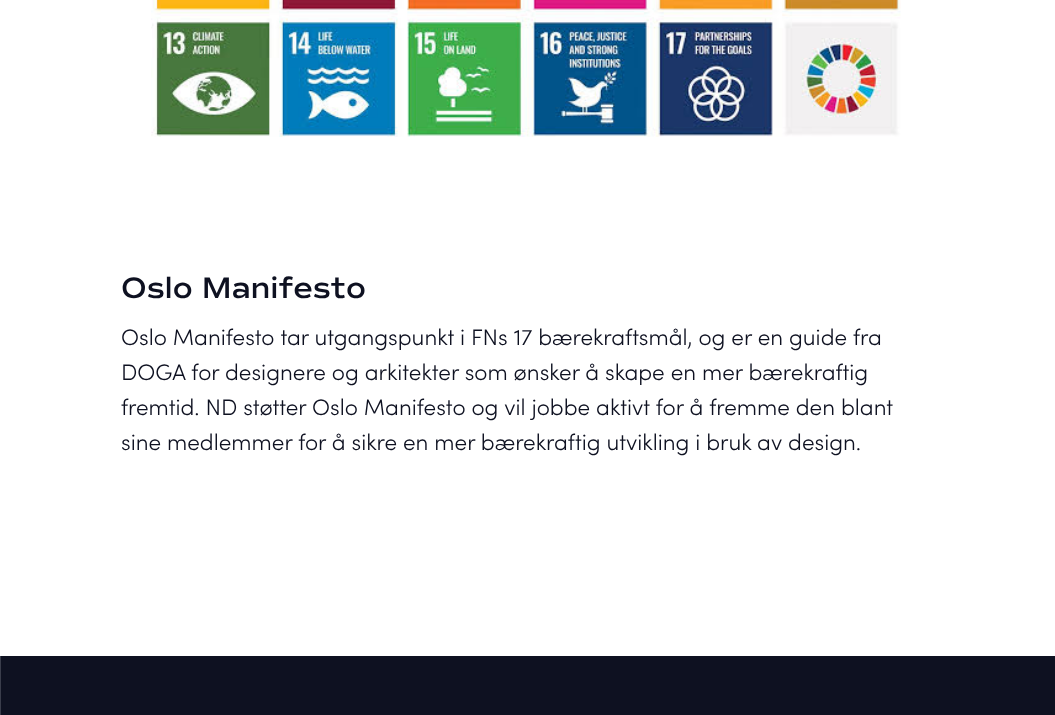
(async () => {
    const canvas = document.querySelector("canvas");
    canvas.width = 1055;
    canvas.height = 715;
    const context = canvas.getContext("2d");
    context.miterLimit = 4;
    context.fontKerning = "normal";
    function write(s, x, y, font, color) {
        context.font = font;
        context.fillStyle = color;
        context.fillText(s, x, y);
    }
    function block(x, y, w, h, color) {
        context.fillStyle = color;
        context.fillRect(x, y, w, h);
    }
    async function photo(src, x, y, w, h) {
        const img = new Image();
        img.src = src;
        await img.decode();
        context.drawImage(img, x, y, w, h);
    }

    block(0, 0, 1055, 715, "rgb(255, 255, 255)");
    await photo("media/1.png", 151, 0, 750, 137);
    write("Oslo Manifesto", 121, 298, "600 30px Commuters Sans", "rgb(14, 17, 33)");
    write("Oslo Manifesto tar utgangspunkt i FNs 17 bærekraftsmål, og er en guide fra", 121, 345, "300 22.5px Sofia", "rgb(14, 17, 33)");
    write("DOGA for designere og arkitekter som ønsker å skape en mer bærekraftig", 121, 380, "300 22.5px Sofia", "rgb(14, 17, 33)");
    write("fremtid. ND støtter Oslo Manifesto og vil jobbe aktivt for å fremme den blant", 121, 415, "300 22.5px Sofia", "rgb(14, 17, 33)");
    write("sine medlemmer for å sikre en mer bærekraftig utvikling i bruk av design.", 121, 450, "300 22.5px Sofia", "rgb(14, 17, 33)");
    block(1, 656, 1054, 59, "rgb(14, 17, 33)");
    block(0, 656, 1, 59, "rgb(58, 61, 75)");
})();
